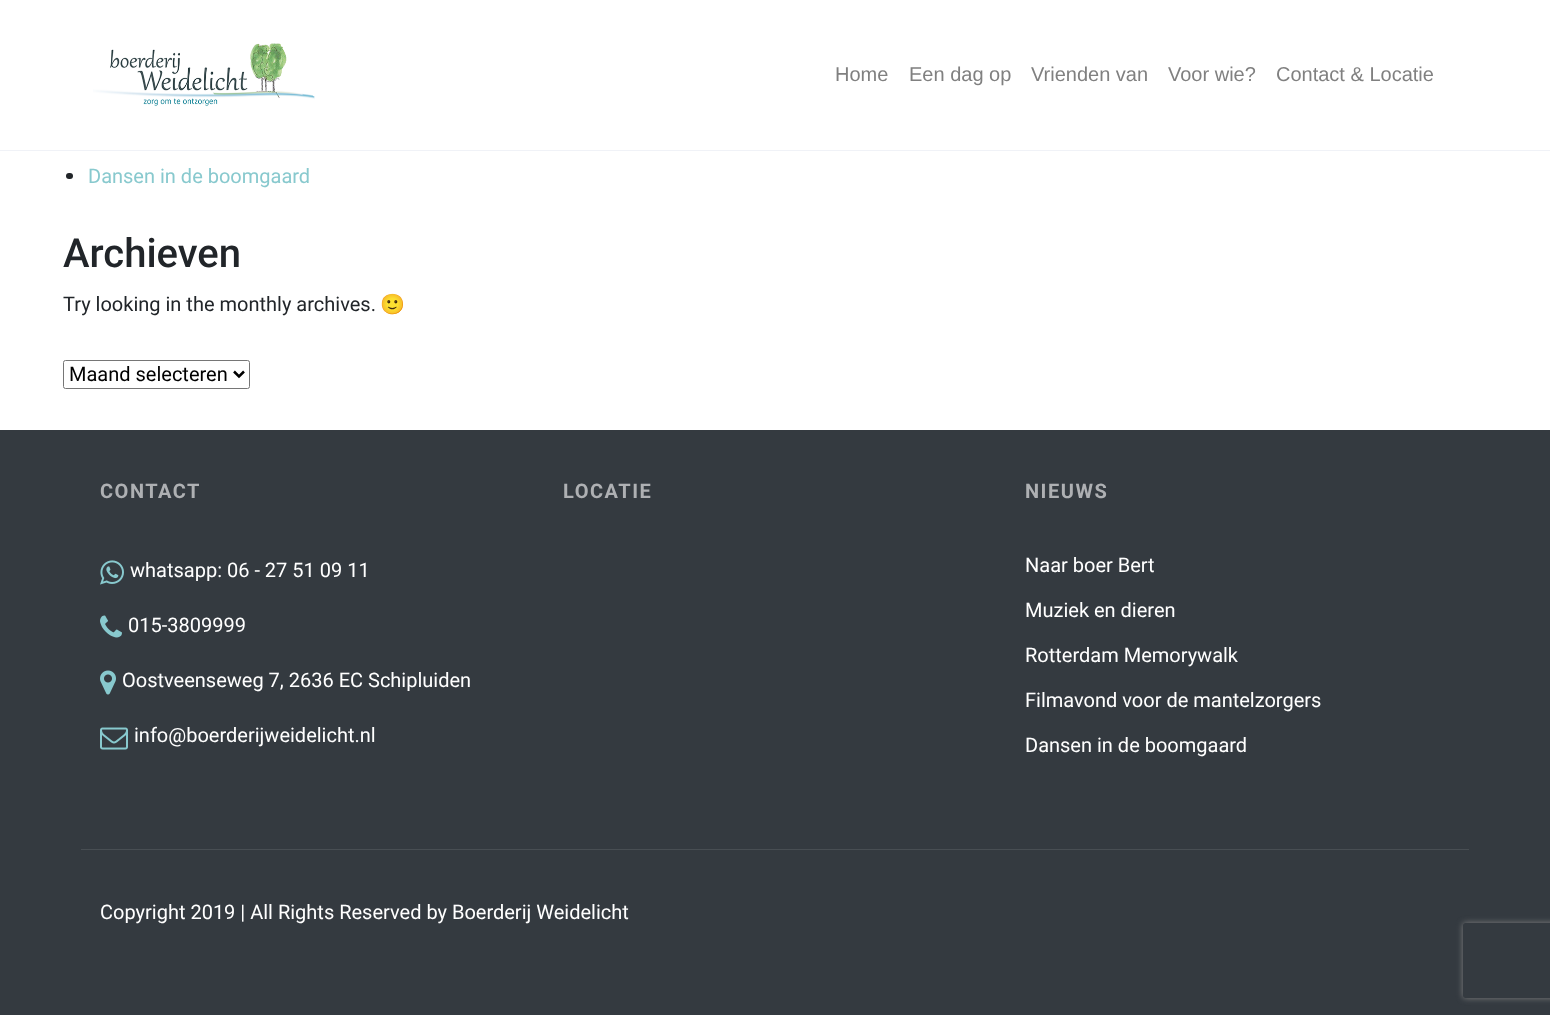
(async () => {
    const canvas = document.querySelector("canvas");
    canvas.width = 1550;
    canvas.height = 1015;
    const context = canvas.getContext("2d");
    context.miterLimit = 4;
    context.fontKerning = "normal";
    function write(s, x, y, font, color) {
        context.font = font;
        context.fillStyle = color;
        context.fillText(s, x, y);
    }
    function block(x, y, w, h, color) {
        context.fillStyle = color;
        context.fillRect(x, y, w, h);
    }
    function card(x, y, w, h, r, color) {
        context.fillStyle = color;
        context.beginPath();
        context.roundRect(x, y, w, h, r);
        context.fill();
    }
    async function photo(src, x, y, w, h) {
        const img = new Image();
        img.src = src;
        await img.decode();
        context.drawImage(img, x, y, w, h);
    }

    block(0, 0, 1550, 1015, "rgb(255, 255, 255)");
    block(0, 150, 1550, 1, "rgb(240, 242, 247)");
    await photo("media/1.png", 93, 43, 222, 64);
    write("Home", 835, 81, "20px Liberation Sans", "rgb(128, 128, 128)");
    write("Een dag op", 909, 81, "20px Liberation Sans", "rgb(128, 128, 128)");
    write("Vrienden van", 1031, 81, "20px Liberation Sans", "rgb(128, 128, 128)");
    write("Voor wie?", 1168, 81, "20px Liberation Sans", "rgb(128, 128, 128)");
    write("Contact & Locatie", 1276, 81, "20px Liberation Sans", "rgb(128, 128, 128)");
    card(66, 173, 7, 6, 3, "rgb(33, 37, 41)");
    write("Dansen in de boomgaard", 88, 183, "20px Roboto", "rgb(136, 201, 206)");
    write("Archieven", 63, 267, "500 40px Roboto", "rgb(33, 37, 41)");
    write("Try looking in the monthly archives.", 63, 311, "20px Roboto", "rgb(33, 37, 41)");
    write("🙂", 380, 311, "20px Noto Color Emoji", "rgb(33, 37, 41)");
    context.beginPath();
    context.roundRect(63.5, 360.5, 186, 28, 2);
    context.strokeStyle = "rgb(118, 118, 118)";
    context.stroke();
    context.beginPath();
    context.moveTo(234, 371.5);
    context.lineTo(239, 376.5);
    context.lineTo(244, 371.5);
    context.strokeStyle = "rgb(0, 0, 0)";
    context.lineWidth = 2.5;
    context.stroke();
    write("Maand selecteren", 69, 381, "20px Roboto", "rgb(0, 0, 0)");
    block(0, 430, 1550, 585, "rgb(52, 58, 64)");
    block(81, 849, 1388, 1, "rgb(72, 78, 83)");
    context.letterSpacing = "1.5px";
    write("CONTACT", 100, 498, "bold 20px Roboto", "rgb(174, 176, 179)");
    await photo("media/2.png", 100, 560, 24, 25);
    context.letterSpacing = "0px";
    write("whatsapp: 06 - 27 51 09 11", 130, 577, "20px Roboto", "rgb(255, 255, 255)");
    await photo("media/3.png", 100, 615, 22, 23);
    write("015-3809999", 128, 632, "20px Roboto", "rgb(255, 255, 255)");
    await photo("media/4.png", 100, 670, 16, 25);
    write("Oostveenseweg 7, 2636 EC Schipluiden", 122, 687, "20px Roboto", "rgb(255, 255, 255)");
    await photo("media/5.png", 100, 727, 28, 23);
    write("info@boerderijweidelicht.nl", 134, 742, "20px Roboto", "rgb(255, 255, 255)");
    context.letterSpacing = "1.5px";
    write("LOCATIE", 563, 498, "bold 20px Roboto", "rgb(174, 176, 179)");
    write("NIEUWS", 1025, 498, "bold 20px Roboto", "rgb(174, 176, 179)");
    context.letterSpacing = "0px";
    write("Naar boer Bert", 1025, 572, "20px Roboto", "rgb(255, 255, 255)");
    write("Muziek en dieren", 1025, 617, "20px Roboto", "rgb(255, 255, 255)");
    write("Rotterdam Memorywalk", 1025, 662, "20px Roboto", "rgb(255, 255, 255)");
    write("Filmavond voor de mantelzorgers", 1025, 707, "20px Roboto", "rgb(255, 255, 255)");
    write("Dansen in de boomgaard", 1025, 752, "20px Roboto", "rgb(255, 255, 255)");
    write("Copyright 2019 | All Rights Reserved by Boerderij Weidelicht", 100, 919, "20px Roboto", "rgb(255, 255, 255)");
    context.save();
    context.beginPath();
    context.moveTo(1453, 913);
    context.lineTo(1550, 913);
    context.lineTo(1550, 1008);
    context.lineTo(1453, 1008);
    context.closePath();
    context.moveTo(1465.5, 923);
    context.lineTo(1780.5, 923);
    context.bezierCurveTo(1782, 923, 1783, 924, 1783, 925.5);
    context.lineTo(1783, 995.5);
    context.bezierCurveTo(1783, 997, 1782, 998, 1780.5, 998);
    context.lineTo(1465.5, 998);
    context.bezierCurveTo(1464, 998, 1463, 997, 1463, 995.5);
    context.lineTo(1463, 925.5);
    context.bezierCurveTo(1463, 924, 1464, 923, 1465.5, 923);
    context.closePath();
    context.clip("evenodd");
    context.fillStyle = "rgb(128, 128, 128)";
    context.filter = "blur(3px)";
    context.beginPath();
    context.roundRect(1463, 923, 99, 75, 2.5);
    context.fill();
    context.filter = "none";
    context.restore();
})();
